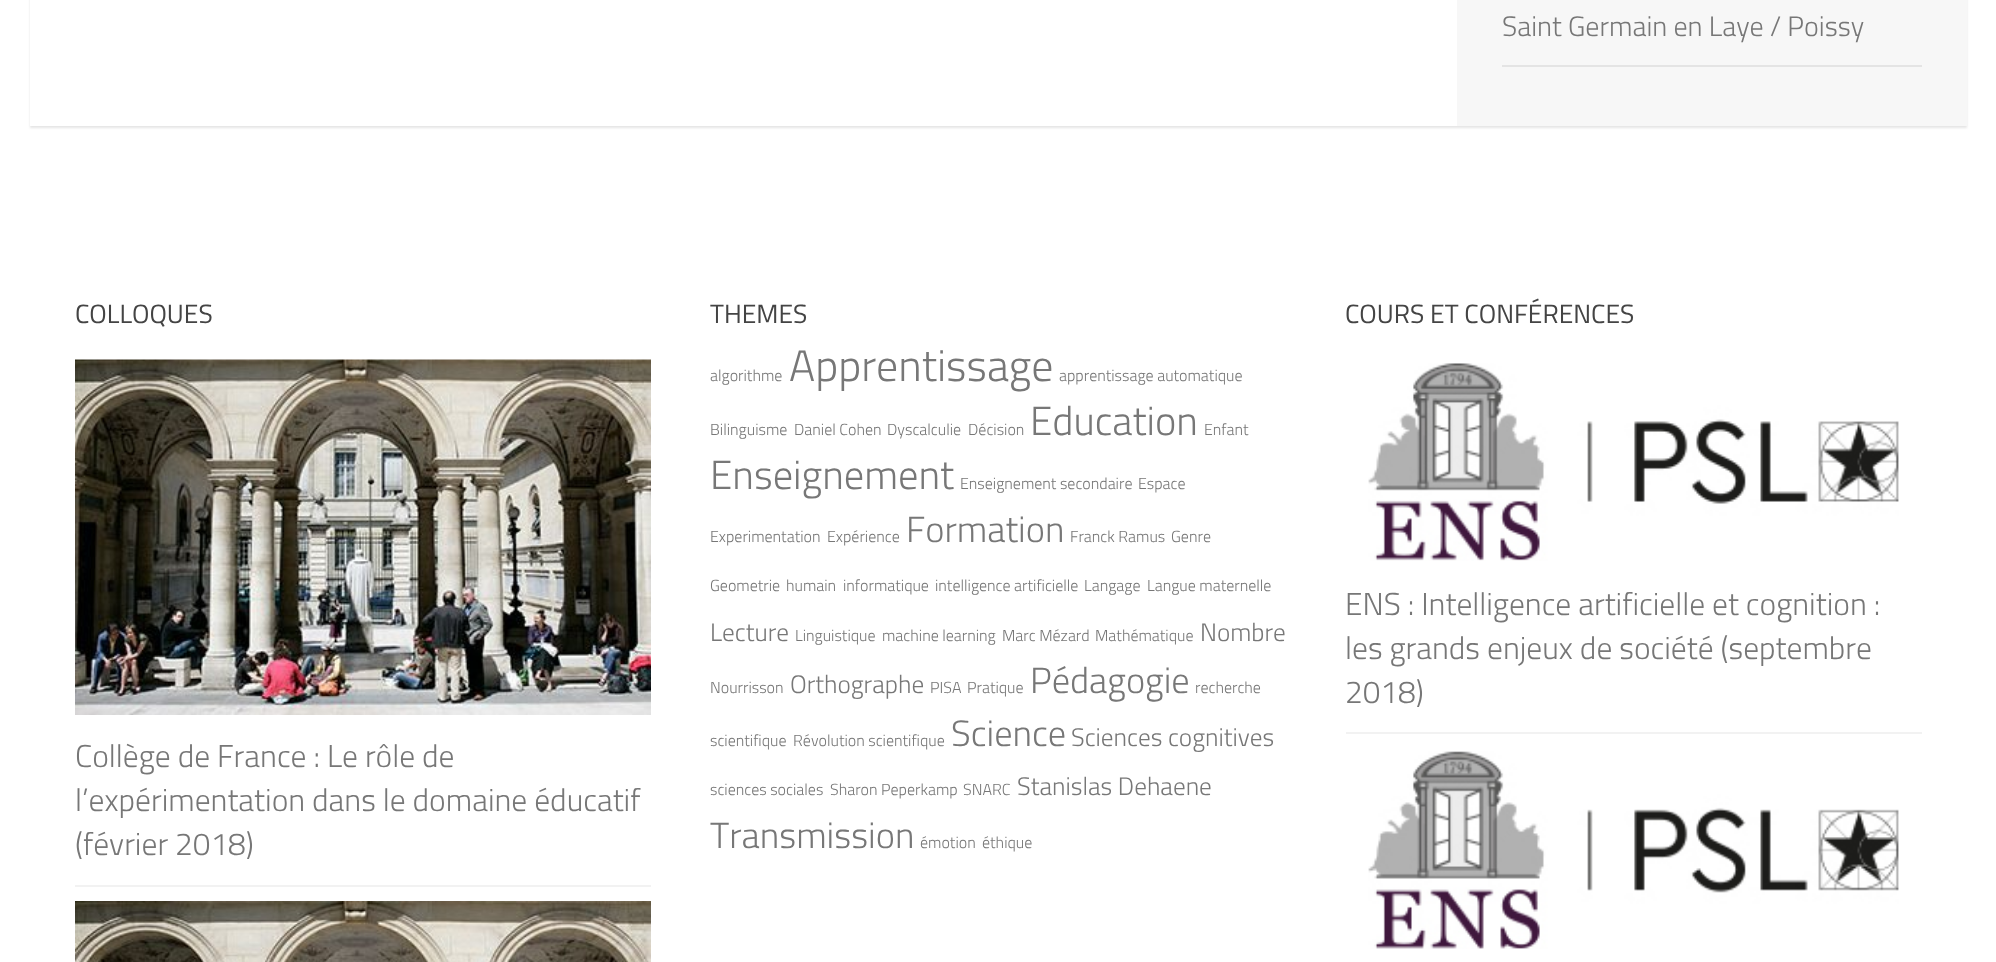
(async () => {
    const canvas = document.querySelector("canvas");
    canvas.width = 1996;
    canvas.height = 962;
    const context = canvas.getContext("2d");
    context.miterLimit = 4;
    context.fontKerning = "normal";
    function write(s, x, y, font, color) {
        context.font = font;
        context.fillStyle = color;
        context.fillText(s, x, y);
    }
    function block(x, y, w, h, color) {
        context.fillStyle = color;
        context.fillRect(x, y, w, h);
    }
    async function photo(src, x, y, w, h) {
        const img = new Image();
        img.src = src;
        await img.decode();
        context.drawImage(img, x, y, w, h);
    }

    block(0, 0, 1996, 962, "rgb(255, 255, 255)");
    context.fillStyle = "rgba(0, 0, 0, 0.1)";
    context.filter = "blur(1px)";
    context.beginPath();
    context.rect(30, -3, 1937, 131);
    context.fill();
    context.filter = "none";
    block(30, 0, 1427, 126, "rgb(255, 255, 255)");
    block(1457, 0, 510, 126, "rgb(247, 247, 247)");
    block(1502, 65, 420, 2, "rgb(228, 228, 228)");
    write("Saint Germain en Laye / Poissy", 1502, 36, "300 28.1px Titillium", "rgb(119, 119, 119)");
    write("COLLOQUES", 75, 323, "26.4px Titillium", "rgb(68, 68, 68)");
    block(75, 885, 576, 2, "rgb(242, 242, 242)");
    await photo("media/1.png", 75, 359, 576, 356);
    write("Collège de France : Le rôle de", 75, 767, "300 31.6px Titillium", "rgb(119, 119, 119)");
    write("l’expérimentation dans le domaine éducatif", 75, 811, "300 31.6px Titillium", "rgb(119, 119, 119)");
    write("(février 2018)", 75, 855, "300 31.6px Titillium", "rgb(119, 119, 119)");
    await photo("media/2.png", 75, 901, 576, 61);
    write("THEMES", 710, 323, "26.4px Titillium", "rgb(68, 68, 68)");
    write("algorithme", 710, 381, "300 16px Titillium", "rgb(119, 119, 119)");
    write("Apprentissage", 789, 381, "300 44px Titillium", "rgb(119, 119, 119)");
    write("apprentissage automatique", 1059, 381, "300 16px Titillium", "rgb(119, 119, 119)");
    write("Bilinguisme", 710, 435, "300 16px Titillium", "rgb(119, 119, 119)");
    write("Daniel Cohen", 794, 435, "300 16px Titillium", "rgb(119, 119, 119)");
    write("Dyscalculie", 887, 435, "300 16px Titillium", "rgb(119, 119, 119)");
    write("Décision", 968, 435, "300 16px Titillium", "rgb(119, 119, 119)");
    write("Education", 1030, 435, "300 40.5px Titillium", "rgb(119, 119, 119)");
    write("Enfant", 1204, 435, "300 16px Titillium", "rgb(119, 119, 119)");
    write("Enseignement", 710, 489, "300 40.5px Titillium", "rgb(119, 119, 119)");
    write("Enseignement secondaire", 960, 489, "300 16px Titillium", "rgb(119, 119, 119)");
    write("Espace", 1138, 489, "300 16px Titillium", "rgb(119, 119, 119)");
    write("Experimentation", 710, 542, "300 16px Titillium", "rgb(119, 119, 119)");
    write("Expérience", 827, 542, "300 16px Titillium", "rgb(119, 119, 119)");
    write("Formation", 906, 542, "300 36.5px Titillium", "rgb(119, 119, 119)");
    write("Franck Ramus", 1070, 542, "300 16px Titillium", "rgb(119, 119, 119)");
    write("Genre", 1171, 542, "300 16px Titillium", "rgb(119, 119, 119)");
    write("Geometrie", 710, 591, "300 16px Titillium", "rgb(119, 119, 119)");
    write("humain", 786, 591, "300 16px Titillium", "rgb(119, 119, 119)");
    write("informatique", 843, 591, "300 16px Titillium", "rgb(119, 119, 119)");
    write("intelligence artificielle", 935, 591, "300 16px Titillium", "rgb(119, 119, 119)");
    write("Langage", 1084, 591, "300 16px Titillium", "rgb(119, 119, 119)");
    write("Langue maternelle", 1147, 591, "300 16px Titillium", "rgb(119, 119, 119)");
    write("Lecture", 710, 641, "300 25.25px Titillium", "rgb(119, 119, 119)");
    write("Linguistique", 795, 641, "300 16px Titillium", "rgb(119, 119, 119)");
    write("machine learning", 882, 641, "300 16px Titillium", "rgb(119, 119, 119)");
    write("Marc Mézard", 1002, 641, "300 16px Titillium", "rgb(119, 119, 119)");
    write("Mathématique", 1095, 641, "300 16px Titillium", "rgb(119, 119, 119)");
    write("Nombre", 1200, 641, "300 25.25px Titillium", "rgb(119, 119, 119)");
    write("Nourrisson", 710, 693, "300 16px Titillium", "rgb(119, 119, 119)");
    write("Orthographe", 790, 693, "300 25.25px Titillium", "rgb(119, 119, 119)");
    write("PISA", 930, 693, "300 16px Titillium", "rgb(119, 119, 119)");
    write("Pratique", 967, 693, "300 16px Titillium", "rgb(119, 119, 119)");
    write("Pédagogie", 1030, 693, "300 36.5px Titillium", "rgb(119, 119, 119)");
    write("recherche", 1195, 693, "300 16px Titillium", "rgb(119, 119, 119)");
    write("scientifique", 710, 746, "300 16px Titillium", "rgb(119, 119, 119)");
    write("Révolution scientifique", 793, 746, "300 16px Titillium", "rgb(119, 119, 119)");
    write("Science", 951, 746, "300 36.5px Titillium", "rgb(119, 119, 119)");
    write("Sciences cognitives", 1071, 746, "300 25.25px Titillium", "rgb(119, 119, 119)");
    write("sciences sociales", 710, 795, "300 16px Titillium", "rgb(119, 119, 119)");
    write("Sharon Peperkamp", 830, 795, "300 16px Titillium", "rgb(119, 119, 119)");
    write("SNARC", 963, 795, "300 16px Titillium", "rgb(119, 119, 119)");
    write("Stanislas Dehaene", 1017, 795, "300 25.25px Titillium", "rgb(119, 119, 119)");
    write("Transmission", 710, 848, "300 36.5px Titillium", "rgb(119, 119, 119)");
    write("émotion", 920, 848, "300 16px Titillium", "rgb(119, 119, 119)");
    write("éthique", 982, 848, "300 16px Titillium", "rgb(119, 119, 119)");
    write("COURS ET CONFÉRENCES", 1345, 323, "26.4px Titillium", "rgb(68, 68, 68)");
    block(1346, 732, 576, 2, "rgb(242, 242, 242)");
    await photo("media/3.png", 1368, 363, 531, 198);
    write("ENS : Intelligence artificielle et cognition :", 1345, 615, "300 31.6px Titillium", "rgb(119, 119, 119)");
    write("les grands enjeux de société (septembre", 1345, 659, "300 31.6px Titillium", "rgb(119, 119, 119)");
    write("2018)", 1345, 703, "300 31.6px Titillium", "rgb(119, 119, 119)");
    await photo("media/4.png", 1368, 751, 531, 198);
})();
